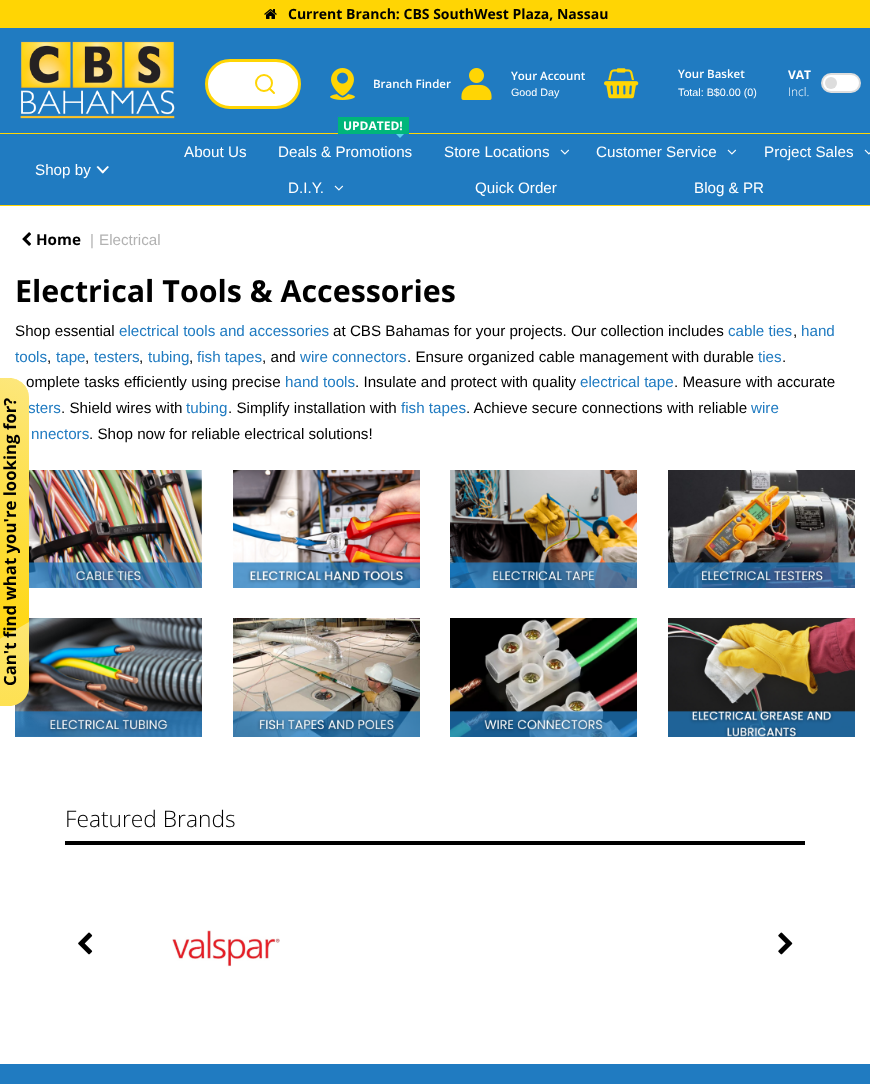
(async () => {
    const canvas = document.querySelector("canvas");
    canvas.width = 870;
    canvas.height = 1084;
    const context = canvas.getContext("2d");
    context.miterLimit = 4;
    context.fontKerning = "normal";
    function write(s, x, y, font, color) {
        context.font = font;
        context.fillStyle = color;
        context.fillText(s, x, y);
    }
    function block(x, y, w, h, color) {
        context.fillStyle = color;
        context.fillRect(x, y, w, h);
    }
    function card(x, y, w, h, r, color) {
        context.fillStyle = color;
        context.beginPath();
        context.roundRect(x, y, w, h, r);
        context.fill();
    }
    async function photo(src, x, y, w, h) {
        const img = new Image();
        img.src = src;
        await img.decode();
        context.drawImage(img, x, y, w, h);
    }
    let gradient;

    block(0, 0, 870, 1084, "rgb(255, 255, 255)");
    block(0, 0, 870, 28, "rgb(255, 213, 4)");
    await photo("media/1.png", 264, 9, 13, 10);
    write("Current Branch: CBS SouthWest Plaza, Nassau", 288, 19, "bold 14px Open Sans", "rgb(0, 0, 0)");
    block(0, 28, 870, 105, "rgb(32, 123, 193)");
    await photo("media/2.png", 20, 41, 155, 78);
    context.fillStyle = "rgb(255, 255, 255)";
    context.beginPath();
    context.roundRect(206.5, 60.5, 93, 47, 23.5);
    context.fill();
    context.strokeStyle = "rgb(255, 213, 4)";
    context.lineWidth = 3;
    context.stroke();
    context.beginPath();
    context.arc(264, 83, 8, 0, Math.PI * 2);
    context.lineWidth = 2;
    context.stroke();
    context.beginPath();
    context.moveTo(274, 93);
    context.lineTo(269.5, 88.5);
    context.lineCap = "round";
    context.lineJoin = "round";
    context.stroke();
    await photo("media/3.png", 330, 68, 25, 32);
    write("Branch Finder", 373, 88, "600 11.5px Open Sans", "rgb(255, 255, 255)");
    await photo("media/4.png", 461, 68, 31, 32);
    write("Your Account", 511, 80, "600 11.5px Open Sans", "rgb(255, 255, 255)");
    write("Good Day", 511, 96, "10.75px Liberation Sans", "rgb(255, 255, 255)");
    await photo("media/5.png", 604, 68, 35, 31);
    write("Your Basket", 678, 78, "600 11.5px Open Sans", "rgb(255, 255, 255)");
    write("Total: B$0.00 (0)", 678, 96, "10.75px Liberation Sans", "rgb(255, 255, 255)");
    write("VAT", 788, 79, "bold 12px Open Sans", "rgb(255, 255, 255)");
    write("Incl.", 788, 96, "300 12px Open Sans", "rgb(255, 255, 255)");
    card(821, 73, 40, 20, 10, "rgb(221, 221, 221)");
    card(823, 75, 36, 16, 8, "rgb(255, 255, 255)");
    context.fillStyle = "rgb(221, 221, 221)";
    context.beginPath();
    context.arc(831, 83, 6, 0, Math.PI * 2);
    context.fill();
    block(0, 134, 870, 71, "rgb(32, 123, 193)");
    block(0, 133, 870, 1, "rgb(255, 213, 4)");
    block(0, 205, 870, 1, "rgb(255, 213, 4)");
    write("Shop by", 35, 175, "15.2px Liberation Sans", "rgb(255, 255, 255)");
    context.beginPath();
    context.moveTo(98, 166);
    context.lineTo(104, 172);
    context.lineTo(102.5, 173.5);
    context.lineTo(96.5, 167);
    context.closePath();
    context.fill();
    context.beginPath();
    context.moveTo(101.5, 172);
    context.lineTo(107.5, 166);
    context.lineTo(109, 167);
    context.lineTo(103, 173.5);
    context.closePath();
    context.fill();
    write("About Us", 184, 157, "15.2px Liberation Sans", "rgb(255, 255, 255)");
    context.fillStyle = "rgb(91, 210, 236)";
    context.beginPath();
    context.moveTo(392, 130);
    context.lineTo(408, 130);
    context.lineTo(400, 138);
    context.closePath();
    context.fill();
    block(338, 117, 71, 17, "rgb(0, 182, 122)");
    write("UPDATED!", 343, 130, "bold 12px Open Sans", "rgb(255, 255, 255)");
    write("Deals & Promotions", 278, 157, "15.2px Liberation Sans", "rgb(255, 255, 255)");
    write("Store Locations", 444, 157, "15.2px Liberation Sans", "rgb(255, 255, 255)");
    await photo("media/6.png", 560, 149, 10, 6);
    write("Customer Service", 596, 157, "15.2px Liberation Sans", "rgb(255, 255, 255)");
    await photo("media/6.png", 727, 149, 10, 6);
    write("Project Sales", 764, 157, "15.2px Liberation Sans", "rgb(255, 255, 255)");
    await photo("media/7.png", 864, 149, 6, 6);
    write("D.I.Y.", 288, 193, "15.2px Liberation Sans", "rgb(255, 255, 255)");
    await photo("media/6.png", 334, 185, 10, 6);
    write("Quick Order", 475, 193, "15.2px Liberation Sans", "rgb(255, 255, 255)");
    write("Blog & PR", 694, 193, "15.2px Liberation Sans", "rgb(255, 255, 255)");
    write("omplete tasks efficiently using precise", 26, 387, "15.2px Liberation Sans", "rgb(0, 0, 0)");
    write("sters", 28, 413, "15.2px Liberation Sans", "rgb(32, 123, 193)");
    await photo("media/13.png", 15, 618, 187, 119);
    context.fillStyle = "rgb(255, 213, 4)";
    context.beginPath();
    context.moveTo(-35, 706);
    context.lineTo(-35, 378);
    context.lineTo(9, 378);
    context.bezierCurveTo(20, 378, 29, 387, 29, 398);
    context.lineTo(29, 686);
    context.bezierCurveTo(29, 697, 20, 706, 9, 706);
    context.closePath();
    context.fill();
    gradient = context.createLinearGradient(-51, 640, 46, 379);
    gradient.addColorStop(0, "rgba(250, 250, 250, 0)");
    gradient.addColorStop(1, "rgba(250, 250, 250, 0.5)");
    context.fillStyle = gradient;
    context.beginPath();
    context.moveTo(-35, 654);
    context.lineTo(28, 692);
    context.lineTo(29, 689);
    context.lineTo(29, 395);
    context.bezierCurveTo(27, 385, 19, 378, 9, 378);
    context.lineTo(-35, 378);
    context.closePath();
    context.fill();
    gradient = context.createLinearGradient(-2.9, 968, -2.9, 640);
    gradient.addColorStop(0, "rgba(250, 250, 250, 0)");
    gradient.addColorStop(1, "rgba(250, 250, 250, 0.4)");
    context.fillStyle = gradient;
    context.beginPath();
    context.moveTo(-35, 706);
    context.lineTo(9, 706);
    context.bezierCurveTo(19, 706, 27, 699, 29, 689);
    context.lineTo(29, 622);
    context.lineTo(-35, 659);
    context.closePath();
    context.fill();
    context.font = "bold 16.75px Open Sans";
    context.fillStyle = "rgb(0, 0, 0)";
    context.save();
    context.translate(16, 686);
    context.rotate(-90 * Math.PI / 180);
    context.fillText("Can't find what you're looking for?", 0, 0);
    context.restore();
    await photo("media/8.png", 22, 232, 9, 14);
    write("Home", 36, 245, "bold 15.2px Open Sans", "rgb(0, 0, 0)");
    write("|", 90, 245, "15.2px Liberation Sans", "rgb(178, 178, 178)");
    write("Electrical", 99, 245, "15.2px Liberation Sans", "rgb(178, 178, 178)");
    write("Electrical Tools & Accessories", 15, 302, "bold 30.4px Open Sans", "rgb(0, 0, 0)");
    write("Shop essential", 15, 336, "15.2px Liberation Sans", "rgb(0, 0, 0)");
    write("electrical tools and accessories", 119, 336, "15.2px Liberation Sans", "rgb(32, 123, 193)");
    write("at CBS Bahamas for your projects. Our collection includes", 333, 336, "15.2px Liberation Sans", "rgb(0, 0, 0)");
    write("cable ties", 728, 336, "15.2px Liberation Sans", "rgb(32, 123, 193)");
    write(",", 793, 336, "15.2px Liberation Sans", "rgb(0, 0, 0)");
    write("hand", 801, 336, "15.2px Liberation Sans", "rgb(32, 123, 193)");
    write("tools", 15, 362, "15.2px Liberation Sans", "rgb(32, 123, 193)");
    write(",", 47, 362, "15.2px Liberation Sans", "rgb(0, 0, 0)");
    write("tape", 56, 362, "15.2px Liberation Sans", "rgb(32, 123, 193)");
    write(",", 85, 362, "15.2px Liberation Sans", "rgb(0, 0, 0)");
    write("testers", 94, 362, "15.2px Liberation Sans", "rgb(32, 123, 193)");
    write(",", 139, 362, "15.2px Liberation Sans", "rgb(0, 0, 0)");
    write("tubing", 148, 362, "15.2px Liberation Sans", "rgb(32, 123, 193)");
    write(",", 189, 362, "15.2px Liberation Sans", "rgb(0, 0, 0)");
    write("fish tapes", 197, 362, "15.2px Liberation Sans", "rgb(32, 123, 193)");
    write(", and", 262, 362, "15.2px Liberation Sans", "rgb(0, 0, 0)");
    write("wire connectors", 300, 362, "15.2px Liberation Sans", "rgb(32, 123, 193)");
    write(". Ensure organized cable management with durable", 407, 362, "15.2px Liberation Sans", "rgb(0, 0, 0)");
    write("ties", 758, 362, "15.2px Liberation Sans", "rgb(32, 123, 193)");
    write(".", 782, 362, "15.2px Liberation Sans", "rgb(0, 0, 0)");
    write("hand tools", 285, 387, "15.2px Liberation Sans", "rgb(32, 123, 193)");
    write(". Insulate and protect with quality", 355, 387, "15.2px Liberation Sans", "rgb(0, 0, 0)");
    write("electrical tape", 580, 387, "15.2px Liberation Sans", "rgb(32, 123, 193)");
    write(". Measure with accurate", 674, 387, "15.2px Liberation Sans", "rgb(0, 0, 0)");
    write(". Shield wires with", 61, 413, "15.2px Liberation Sans", "rgb(0, 0, 0)");
    write("tubing", 186, 413, "15.2px Liberation Sans", "rgb(32, 123, 193)");
    write(". Simplify installation with", 228, 413, "15.2px Liberation Sans", "rgb(0, 0, 0)");
    write("fish tapes", 401, 413, "15.2px Liberation Sans", "rgb(32, 123, 193)");
    write(". Achieve secure connections with reliable", 466, 413, "15.2px Liberation Sans", "rgb(0, 0, 0)");
    write("wire", 751, 413, "15.2px Liberation Sans", "rgb(32, 123, 193)");
    write("nnectors", 31, 439, "15.2px Liberation Sans", "rgb(32, 123, 193)");
    write(". Shop now for reliable electrical solutions!", 89, 439, "15.2px Liberation Sans", "rgb(0, 0, 0)");
    await photo("media/9.png", 29, 470, 173, 118);
    await photo("media/10.png", 233, 470, 187, 118);
    await photo("media/11.png", 450, 470, 187, 118);
    await photo("media/12.png", 668, 470, 187, 118);
    await photo("media/14.png", 233, 618, 187, 119);
    await photo("media/15.png", 450, 618, 187, 119);
    await photo("media/16.png", 668, 618, 187, 119);
    block(65, 841, 740, 4, "rgb(0, 0, 0)");
    write("Featured Brands", 65, 827, "300 22.75px Open Sans", "rgb(0, 0, 0)");
    await photo("media/17.png", 172, 930, 108, 37);
    await photo("media/18.png", 78, 932, 15, 23);
    await photo("media/19.png", 778, 932, 15, 23);
    block(0, 1064, 870, 20, "rgb(32, 123, 193)");
})();
